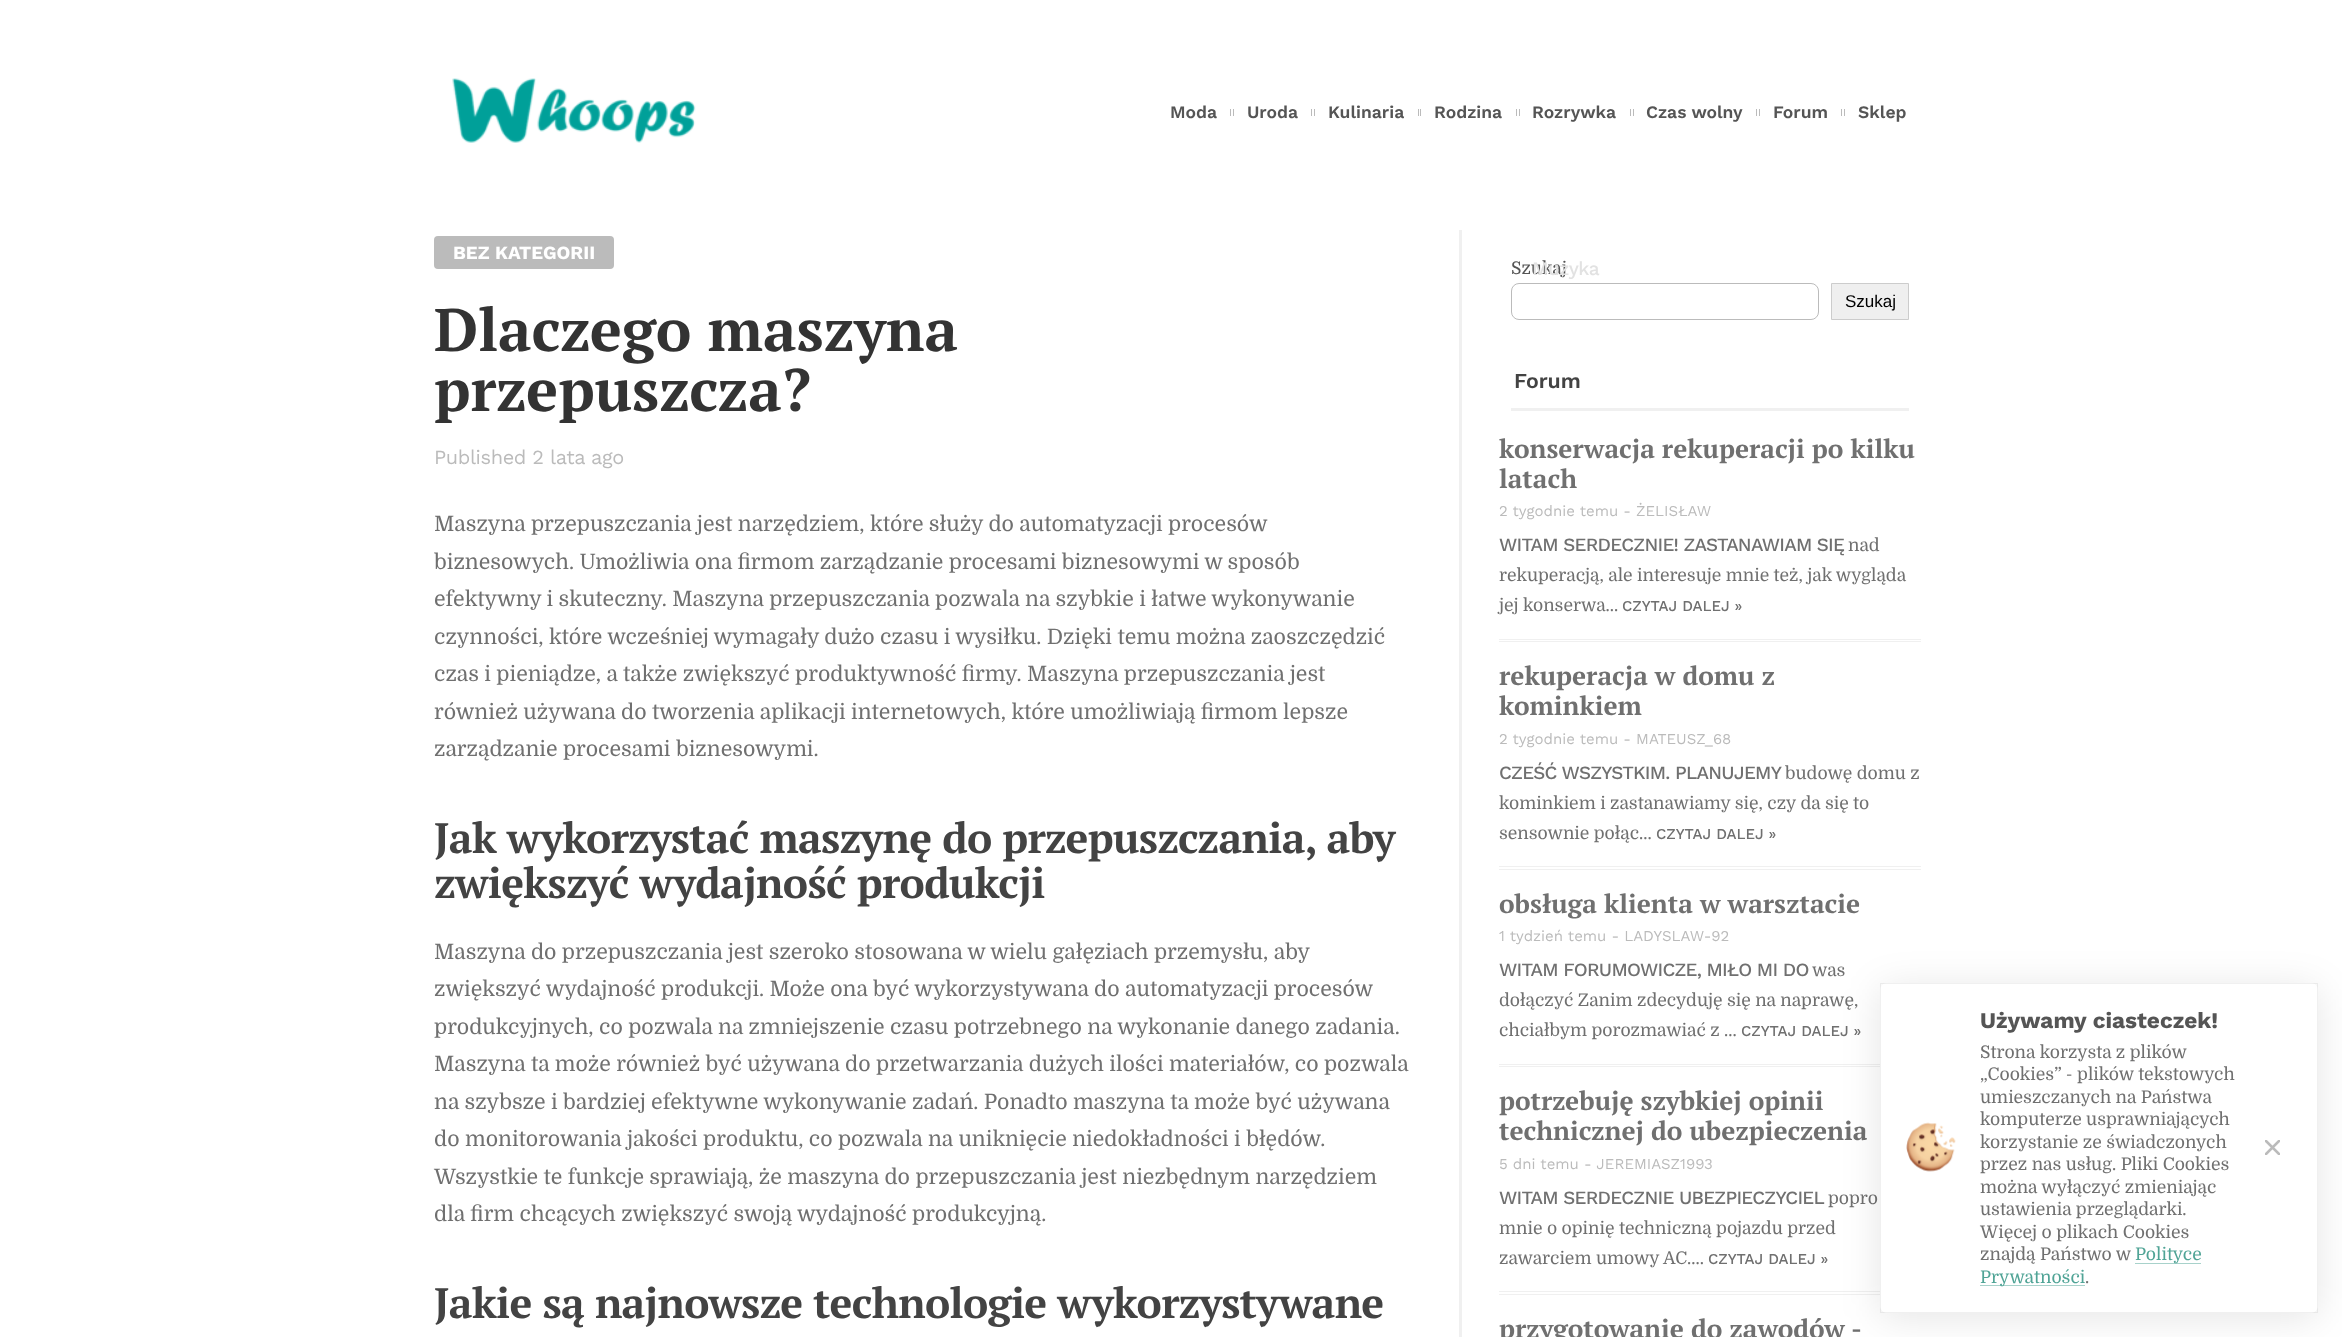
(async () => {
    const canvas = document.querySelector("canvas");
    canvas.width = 2342;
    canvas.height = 1337;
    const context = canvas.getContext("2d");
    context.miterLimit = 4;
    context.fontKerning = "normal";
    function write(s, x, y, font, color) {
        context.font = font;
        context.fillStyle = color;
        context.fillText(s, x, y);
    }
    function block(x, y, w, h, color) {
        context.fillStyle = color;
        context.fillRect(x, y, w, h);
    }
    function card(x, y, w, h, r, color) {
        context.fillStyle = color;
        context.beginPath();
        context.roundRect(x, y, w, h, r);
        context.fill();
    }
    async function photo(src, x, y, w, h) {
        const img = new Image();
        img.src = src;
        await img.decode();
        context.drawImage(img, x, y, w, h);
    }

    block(0, 0, 2342, 1337, "rgb(255, 255, 255)");
    await photo("media/1.png", 452, 78, 244, 65);
    write("Moda", 1170, 118, "600 17.5px Work Sans", "rgb(85, 85, 85)");
    block(1233, 109, 1, 7, "rgb(187, 187, 187)");
    block(1230, 109, 1, 7, "rgb(187, 187, 187)");
    write("Uroda", 1247, 118, "600 17.5px Work Sans", "rgb(85, 85, 85)");
    block(1314, 109, 1, 7, "rgb(187, 187, 187)");
    block(1311, 109, 1, 7, "rgb(187, 187, 187)");
    write("Kulinaria", 1328, 118, "600 17.5px Work Sans", "rgb(85, 85, 85)");
    block(1420, 109, 1, 7, "rgb(187, 187, 187)");
    block(1418, 109, 1, 7, "rgb(187, 187, 187)");
    write("Rodzina", 1434, 118, "600 17.5px Work Sans", "rgb(85, 85, 85)");
    block(1519, 109, 1, 7, "rgb(187, 187, 187)");
    block(1516, 109, 1, 7, "rgb(187, 187, 187)");
    write("Rozrywka", 1532, 118, "600 17.5px Work Sans", "rgb(85, 85, 85)");
    write("Szukaj", 1511, 274, "17.5px Domine", "rgb(85, 85, 85)");
    context.letterSpacing = "-0.5px";
    write("Muzyka", 1532, 275, "500 19px Work Sans", "rgb(226, 226, 226)");
    block(1633, 109, 1, 7, "rgb(187, 187, 187)");
    block(1630, 109, 1, 7, "rgb(187, 187, 187)");
    context.letterSpacing = "0px";
    write("Czas wolny", 1646, 118, "600 17.5px Work Sans", "rgb(85, 85, 85)");
    block(1759, 109, 1, 7, "rgb(187, 187, 187)");
    block(1756, 109, 1, 7, "rgb(187, 187, 187)");
    write("Forum", 1773, 118, "600 17.5px Work Sans", "rgb(85, 85, 85)");
    block(1844, 109, 1, 7, "rgb(187, 187, 187)");
    block(1841, 109, 1, 7, "rgb(187, 187, 187)");
    write("Sklep", 1858, 118, "600 17.5px Work Sans", "rgb(85, 85, 85)");
    card(434, 236, 180, 33, 4, "rgb(187, 187, 187)");
    write("BEZ KATEGORII", 453, 259, "bold 18.75px Work Sans", "rgb(255, 255, 255)");
    write("Dlaczego maszyna", 434, 351, "bold 60px PT Serif", "rgb(51, 51, 51)");
    write("przepuszcza?", 434, 411, "bold 60px PT Serif", "rgb(51, 51, 51)");
    context.letterSpacing = "-0.4px";
    write("Published 2 lata ago", 434, 464, "20px Work Sans", "rgb(187, 187, 187)");
    context.letterSpacing = "0px";
    write("Maszyna przepuszczania jest narzędziem, które służy do automatyzacji procesów", 434, 531, "21.25px Domine", "rgb(112, 112, 112)");
    write("biznesowych. Umożliwia ona firmom zarządzanie procesami biznesowymi w sposób", 434, 569, "21.25px Domine", "rgb(112, 112, 112)");
    write("efektywny i skuteczny. Maszyna przepuszczania pozwala na szybkie i łatwe wykonywanie", 434, 606, "21.25px Domine", "rgb(112, 112, 112)");
    write("czynności, które wcześniej wymagały dużo czasu i wysiłku. Dzięki temu można zaoszczędzić", 434, 644, "21.25px Domine", "rgb(112, 112, 112)");
    write("czas i pieniądze, a także zwiększyć produktywność firmy. Maszyna przepuszczania jest", 434, 681, "21.25px Domine", "rgb(112, 112, 112)");
    write("również używana do tworzenia aplikacji internetowych, które umożliwiają firmom lepsze", 434, 719, "21.25px Domine", "rgb(112, 112, 112)");
    write("zarządzanie procesami biznesowymi.", 434, 756, "21.25px Domine", "rgb(112, 112, 112)");
    context.letterSpacing = "-0.65px";
    write("Jak wykorzystać maszynę do przepuszczania, aby", 434, 853, "bold 42.5px PT Serif", "rgb(67, 67, 67)");
    write("zwiększyć wydajność produkcji", 434, 898, "bold 42.5px PT Serif", "rgb(67, 67, 67)");
    context.letterSpacing = "0px";
    write("Maszyna do przepuszczania jest szeroko stosowana w wielu gałęziach przemysłu, aby", 434, 959, "21.25px Domine", "rgb(112, 112, 112)");
    write("zwiększyć wydajność produkcji. Może ona być wykorzystywana do automatyzacji procesów", 434, 996, "21.25px Domine", "rgb(112, 112, 112)");
    write("produkcyjnych, co pozwala na zmniejszenie czasu potrzebnego na wykonanie danego zadania.", 434, 1034, "21.25px Domine", "rgb(112, 112, 112)");
    write("Maszyna ta może również być używana do przetwarzania dużych ilości materiałów, co pozwala", 434, 1071, "21.25px Domine", "rgb(112, 112, 112)");
    write("na szybsze i bardziej efektywne wykonywanie zadań. Ponadto maszyna ta może być używana", 434, 1109, "21.25px Domine", "rgb(112, 112, 112)");
    write("do monitorowania jakości produktu, co pozwala na uniknięcie niedokładności i błędów.", 434, 1146, "21.25px Domine", "rgb(112, 112, 112)");
    write("Wszystkie te funkcje sprawiają, że maszyna do przepuszczania jest niezbędnym narzędziem", 434, 1184, "21.25px Domine", "rgb(112, 112, 112)");
    write("dla firm chcących zwiększyć swoją wydajność produkcyjną.", 434, 1221, "21.25px Domine", "rgb(112, 112, 112)");
    context.letterSpacing = "-0.65px";
    write("Jakie są najnowsze technologie wykorzystywane", 434, 1318, "bold 42.5px PT Serif", "rgb(67, 67, 67)");
    block(1459, 230, 3, 1107, "rgb(240, 240, 240)");
    context.beginPath();
    context.roundRect(1511.5, 283.5, 307, 36, 7.5);
    context.strokeStyle = "rgb(187, 187, 187)";
    context.stroke();
    context.fillStyle = "rgb(239, 239, 239)";
    context.beginPath();
    context.rect(1831.5, 283.5, 77, 36);
    context.fill();
    context.strokeStyle = "rgb(204, 204, 204)";
    context.stroke();
    context.letterSpacing = "0px";
    write("Szukaj", 1845, 307, "17px Liberation Sans", "rgb(0, 0, 0)");
    write("Forum", 1514, 388, "600 21.25px Work Sans", "rgb(67, 67, 67)");
    block(1511, 408, 398, 3, "rgb(240, 240, 240)");
    write("konserwacja rekuperacji po kilku", 1499, 458, "bold 26.25px PT Serif", "rgb(112, 112, 112)");
    write("latach", 1499, 488, "bold 26.25px PT Serif", "rgb(112, 112, 112)");
    write("2 tygodnie temu - ŻELISŁAW", 1499, 516, "15px Work Sans", "rgb(187, 187, 187)");
    context.letterSpacing = "-0.75px";
    write("WITAM SERDECZNIE! ZASTANAWIAM SIĘ", 1499, 551, "500 18.75px Work Sans", "rgb(112, 112, 112)");
    context.letterSpacing = "0px";
    write("nad", 1848, 551, "17.5px Domine", "rgb(112, 112, 112)");
    write("rekuperacją, ale interesuje mnie też, jak wygląda", 1499, 581, "17.5px Domine", "rgb(112, 112, 112)");
    write("jej konserwa...", 1499, 611, "17.5px Domine", "rgb(112, 112, 112)");
    write("CZYTAJ DALEJ »", 1622, 611, "500 15px Work Sans", "rgb(112, 112, 112)");
    block(1499, 639, 422, 1, "rgb(240, 240, 240)");
    block(1499, 641, 422, 1, "rgb(240, 240, 240)");
    write("rekuperacja w domu z", 1499, 685, "bold 26.25px PT Serif", "rgb(112, 112, 112)");
    write("kominkiem", 1499, 715, "bold 26.25px PT Serif", "rgb(112, 112, 112)");
    write("2 tygodnie temu - MATEUSZ_68", 1499, 744, "15px Work Sans", "rgb(187, 187, 187)");
    context.letterSpacing = "-0.75px";
    write("CZEŚĆ WSZYSTKIM. PLANUJEMY", 1499, 779, "500 18.75px Work Sans", "rgb(112, 112, 112)");
    context.letterSpacing = "0px";
    write("budowę domu z", 1785, 779, "17.5px Domine", "rgb(112, 112, 112)");
    write("kominkiem i zastanawiamy się, czy da się to", 1499, 809, "17.5px Domine", "rgb(112, 112, 112)");
    write("sensownie połąc...", 1499, 839, "17.5px Domine", "rgb(112, 112, 112)");
    write("CZYTAJ DALEJ »", 1656, 839, "500 15px Work Sans", "rgb(112, 112, 112)");
    block(1499, 866, 422, 1, "rgb(240, 240, 240)");
    block(1499, 869, 422, 1, "rgb(240, 240, 240)");
    write("obsługa klienta w warsztacie", 1499, 913, "bold 26.25px PT Serif", "rgb(112, 112, 112)");
    write("1 tydzień temu - LADYSLAW-92", 1499, 941, "15px Work Sans", "rgb(187, 187, 187)");
    context.letterSpacing = "-0.75px";
    write("WITAM FORUMOWICZE, MIŁO MI DO", 1499, 976, "500 18.75px Work Sans", "rgb(112, 112, 112)");
    context.letterSpacing = "0px";
    write("was", 1812, 976, "17.5px Domine", "rgb(112, 112, 112)");
    write("dołączyć Zanim zdecyduję się na naprawę,", 1499, 1006, "17.5px Domine", "rgb(112, 112, 112)");
    write("chciałbym porozmawiać z ...", 1499, 1036, "17.5px Domine", "rgb(112, 112, 112)");
    write("CZYTAJ DALEJ »", 1741, 1036, "500 15px Work Sans", "rgb(112, 112, 112)");
    block(1499, 1064, 422, 1, "rgb(240, 240, 240)");
    block(1499, 1066, 422, 1, "rgb(240, 240, 240)");
    write("potrzebuję szybkiej opinii", 1499, 1110, "bold 26.25px PT Serif", "rgb(112, 112, 112)");
    write("technicznej do ubezpieczenia", 1499, 1140, "bold 26.25px PT Serif", "rgb(112, 112, 112)");
    write("5 dni temu - JEREMIASZ1993", 1499, 1169, "15px Work Sans", "rgb(187, 187, 187)");
    context.letterSpacing = "-0.75px";
    write("WITAM SERDECZNIE UBEZPIECZYCIEL", 1499, 1204, "500 18.75px Work Sans", "rgb(112, 112, 112)");
    context.letterSpacing = "0px";
    write("popro", 1828, 1204, "17.5px Domine", "rgb(112, 112, 112)");
    write("mnie o opinię techniczną pojazdu przed", 1499, 1234, "17.5px Domine", "rgb(112, 112, 112)");
    write("zawarciem umowy AC....", 1499, 1264, "17.5px Domine", "rgb(112, 112, 112)");
    write("CZYTAJ DALEJ »", 1708, 1264, "500 15px Work Sans", "rgb(112, 112, 112)");
    block(1499, 1291, 422, 1, "rgb(240, 240, 240)");
    block(1499, 1294, 422, 1, "rgb(240, 240, 240)");
    write("przygotowanie do zawodów -", 1499, 1338, "bold 26.25px PT Serif", "rgb(112, 112, 112)");
    context.save();
    context.beginPath();
    context.moveTo(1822, 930);
    context.lineTo(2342, 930);
    context.lineTo(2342, 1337);
    context.lineTo(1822, 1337);
    context.closePath();
    context.moveTo(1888, 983);
    context.lineTo(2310, 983);
    context.bezierCurveTo(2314.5, 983, 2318, 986.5, 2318, 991);
    context.lineTo(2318, 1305);
    context.bezierCurveTo(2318, 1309.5, 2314.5, 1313, 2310, 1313);
    context.lineTo(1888, 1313);
    context.bezierCurveTo(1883.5, 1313, 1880, 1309.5, 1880, 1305);
    context.lineTo(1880, 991);
    context.bezierCurveTo(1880, 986.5, 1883.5, 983, 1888, 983);
    context.closePath();
    context.clip("evenodd");
    context.fillStyle = "rgba(0, 0, 0, 0.1)";
    context.filter = "blur(19px)";
    context.beginPath();
    context.roundRect(1880, 988, 438, 330, 8);
    context.fill();
    context.filter = "none";
    context.restore();
    card(1880, 983, 438, 330, 8, "rgba(255, 255, 255, 0.97)");
    context.strokeStyle = "rgba(0, 0, 0, 0.06)";
    context.strokeRect(1880.5, 983.5, 437, 329);
    write("Używamy ciasteczek!", 1980, 1028, "bold 22.5px Work Sans", "rgb(85, 85, 85)");
    await photo("media/2.png", 1906, 1122, 50, 50);
    write("Strona korzysta z plików", 1980, 1058, "17.5px Domine", "rgb(112, 112, 112)");
    write("„Cookies” - plików tekstowych", 1980, 1080, "17.5px Domine", "rgb(112, 112, 112)");
    write("umieszczanych na Państwa", 1980, 1103, "17.5px Domine", "rgb(112, 112, 112)");
    write("komputerze usprawniających", 1980, 1125, "17.5px Domine", "rgb(112, 112, 112)");
    write("korzystanie ze świadczonych", 1980, 1148, "17.5px Domine", "rgb(112, 112, 112)");
    write("przez nas usług. Pliki Cookies", 1980, 1170, "17.5px Domine", "rgb(112, 112, 112)");
    write("można wyłączyć zmieniając", 1980, 1193, "17.5px Domine", "rgb(112, 112, 112)");
    write("ustawienia przeglądarki.", 1980, 1215, "17.5px Domine", "rgb(112, 112, 112)");
    write("Więcej o plikach Cookies", 1980, 1238, "17.5px Domine", "rgb(112, 112, 112)");
    write("znajdą Państwo w", 1980, 1260, "17.5px Domine", "rgb(112, 112, 112)");
    block(2135, 1263, 66, 1, "rgb(168, 210, 203)");
    write("Polityce", 2135, 1260, "17.5px Domine", "rgb(80, 164, 150)");
    block(1980, 1285, 105, 1, "rgb(168, 210, 203)");
    write("Prywatności", 1980, 1283, "17.5px Domine", "rgb(80, 164, 150)");
    write(".", 2085, 1283, "17.5px Domine", "rgb(112, 112, 112)");
    context.save();
    context.beginPath();
    context.rect(2265, 1140, 15, 15);
    context.clip();
    context.beginPath();
    context.moveTo(2266, 1141);
    context.lineTo(2279, 1154);
    context.moveTo(2279, 1141);
    context.lineTo(2266, 1154);
    context.strokeStyle = "rgb(187, 187, 187)";
    context.lineWidth = 2.5;
    context.lineCap = "round";
    context.stroke();
    context.restore();
})();
